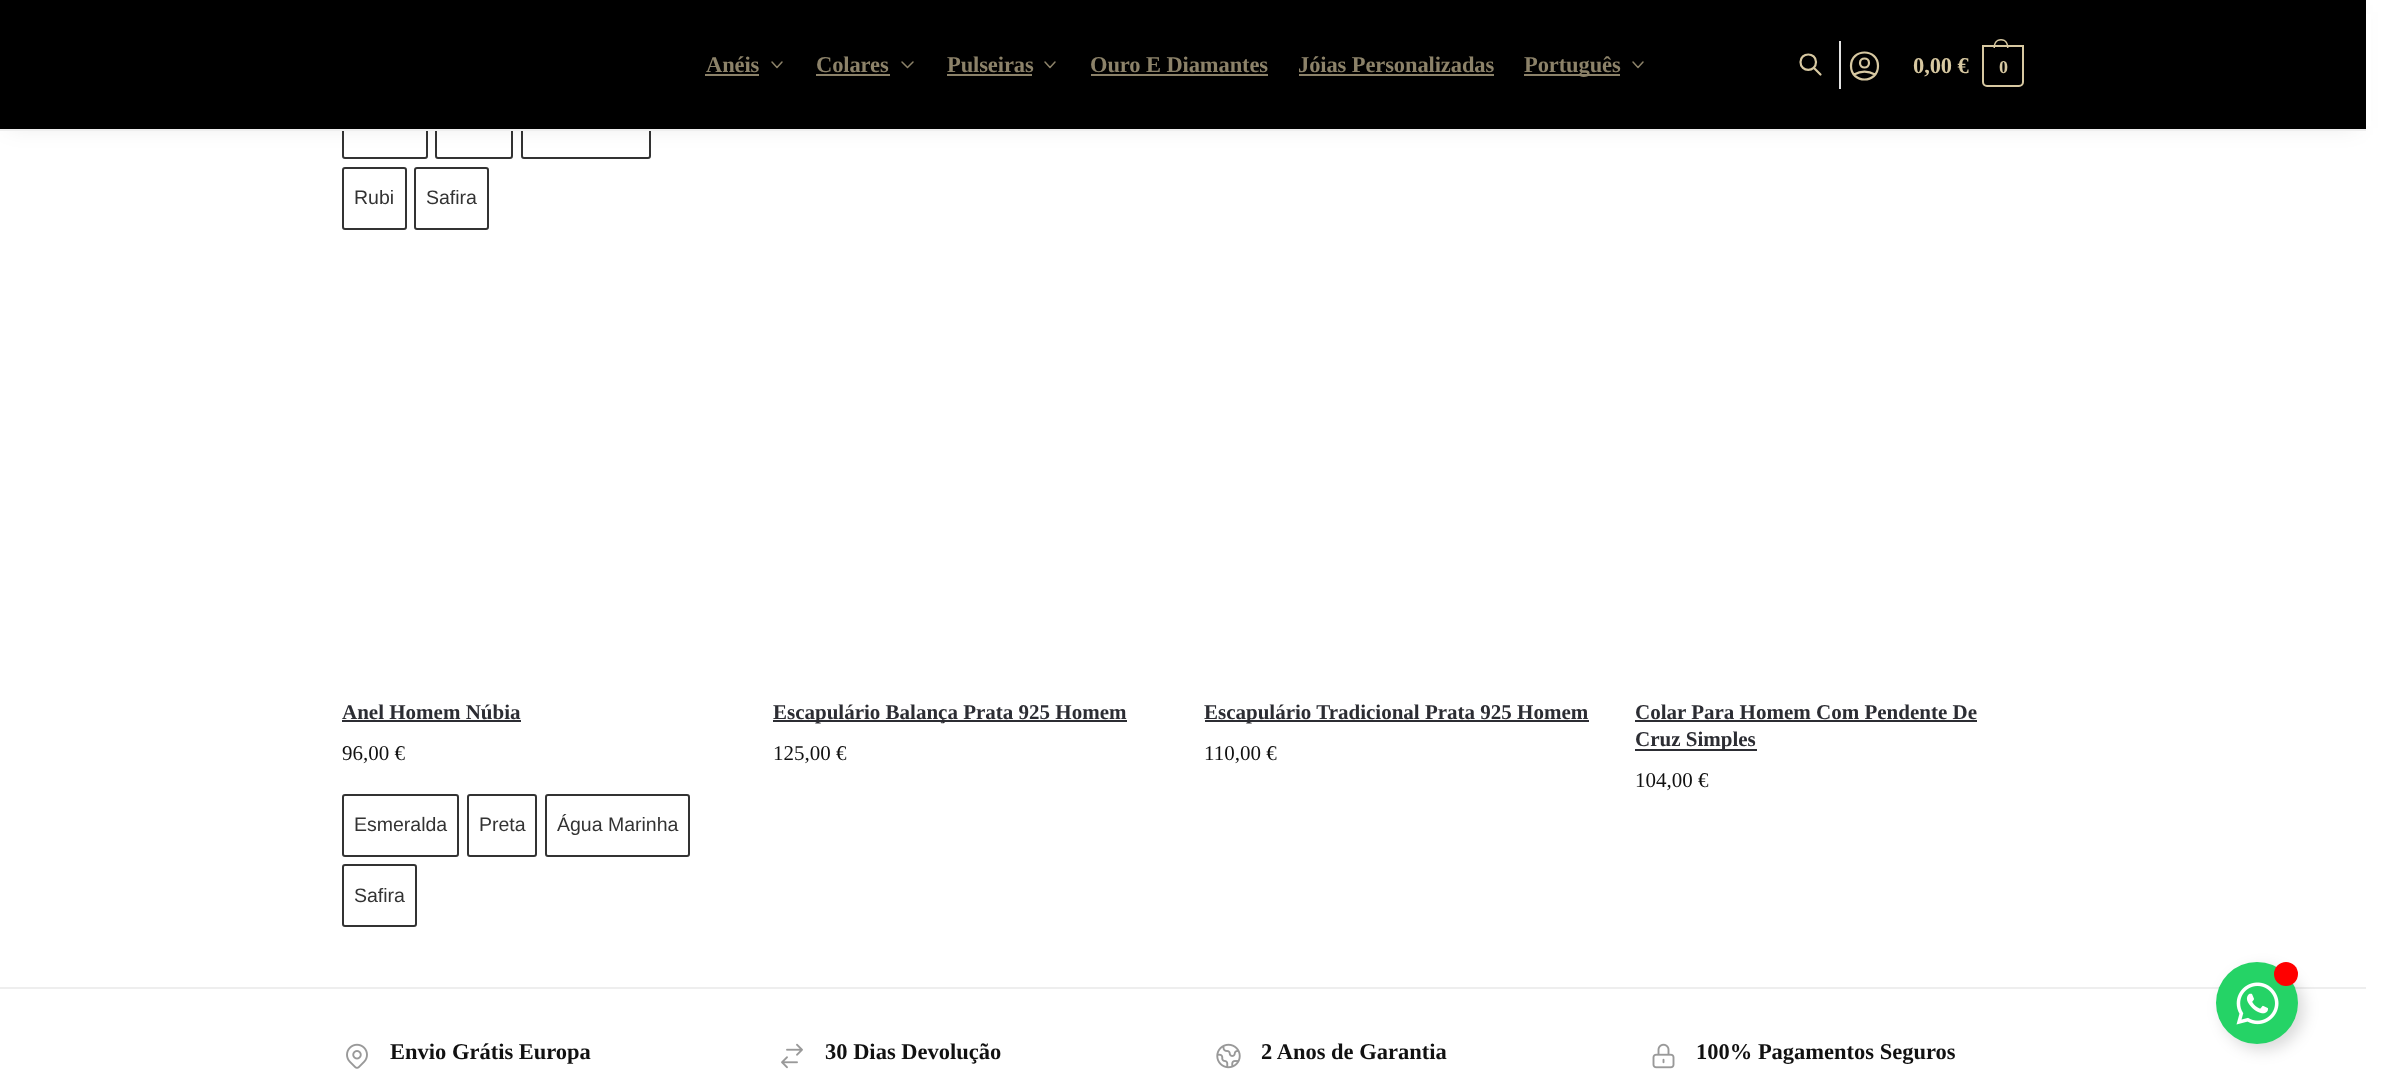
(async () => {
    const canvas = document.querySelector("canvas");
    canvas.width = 2388;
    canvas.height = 1081;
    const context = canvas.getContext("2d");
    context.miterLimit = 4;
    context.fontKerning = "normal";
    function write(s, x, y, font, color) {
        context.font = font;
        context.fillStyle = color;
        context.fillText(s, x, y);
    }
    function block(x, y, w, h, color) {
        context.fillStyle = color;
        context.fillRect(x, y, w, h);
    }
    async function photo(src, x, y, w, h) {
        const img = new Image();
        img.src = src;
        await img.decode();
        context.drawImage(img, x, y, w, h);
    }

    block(0, 0, 2388, 1081, "rgb(255, 255, 255)");
    context.beginPath();
    context.roundRect(343, 97, 84, 61, 2);
    context.strokeStyle = "rgb(51, 51, 51)";
    context.lineWidth = 2;
    context.stroke();
    context.beginPath();
    context.roundRect(436, 97, 76, 61, 2);
    context.stroke();
    context.beginPath();
    context.roundRect(522, 97, 128, 61, 2);
    context.stroke();
    context.fillStyle = "rgba(0, 0, 0, 0.08)";
    context.filter = "blur(11px)";
    context.beginPath();
    context.rect(8, 12, 2350, 116);
    context.fill();
    context.filter = "none";
    block(0, 0, 2366, 129, "rgb(0, 0, 0)");
    block(0, 129, 2366, 2, "rgb(238, 238, 238)");
    context.letterSpacing = "-0.1px";
    write("Anéis", 706, 72, "bold 22.5px Liberation Serif", "rgb(140, 130, 105)");
    block(705, 74, 54, 2, "rgb(140, 130, 105)");
    context.beginPath();
    context.moveTo(782, 62);
    context.lineTo(777, 67.5);
    context.lineTo(772, 62);
    context.strokeStyle = "rgb(140, 130, 105)";
    context.lineWidth = 1.5;
    context.lineCap = "round";
    context.lineJoin = "round";
    context.stroke();
    write("Colares", 816, 72, "bold 22.5px Liberation Serif", "rgb(140, 130, 105)");
    block(816, 74, 74, 2, "rgb(140, 130, 105)");
    context.beginPath();
    context.moveTo(913, 62);
    context.lineTo(907.5, 67.5);
    context.lineTo(902, 62);
    context.stroke();
    write("Pulseiras", 947, 72, "bold 22.5px Liberation Serif", "rgb(140, 130, 105)");
    block(947, 74, 85, 2, "rgb(140, 130, 105)");
    context.beginPath();
    context.moveTo(1055, 62);
    context.lineTo(1050, 67.5);
    context.lineTo(1045, 62);
    context.stroke();
    write("Ouro E Diamantes", 1090, 72, "bold 22.5px Liberation Serif", "rgb(140, 130, 105)");
    block(1091, 74, 177, 2, "rgb(140, 130, 105)");
    write("Jóias Personalizadas", 1298, 72, "bold 22.5px Liberation Serif", "rgb(140, 130, 105)");
    block(1299, 74, 195, 2, "rgb(140, 130, 105)");
    block(1524, 74, 96, 2, "rgb(140, 130, 105)");
    write("Português", 1524, 72, "bold 22.5px Liberation Serif", "rgb(140, 130, 105)");
    context.beginPath();
    context.moveTo(1643, 62);
    context.lineTo(1638, 67.5);
    context.lineTo(1633, 62);
    context.stroke();
    context.beginPath();
    context.moveTo(1820.5, 74.5);
    context.lineTo(1814, 68);
    context.moveTo(1816, 62);
    context.bezierCurveTo(1816, 72.5, 1800.5, 72.5, 1800.5, 62);
    context.bezierCurveTo(1800.5, 52, 1816, 52, 1816, 62);
    context.closePath();
    context.strokeStyle = "rgb(215, 200, 161)";
    context.lineWidth = 2.2;
    context.stroke();
    block(1839, 41, 2, 48, "rgb(226, 226, 226)");
    context.beginPath();
    context.moveTo(1854, 74.5);
    context.bezierCurveTo(1860.5, 71, 1868.5, 71, 1875, 74.5);
    context.moveTo(1869, 63);
    context.bezierCurveTo(1869, 69, 1860, 69, 1860, 63);
    context.bezierCurveTo(1860, 57, 1869, 57, 1869, 63);
    context.closePath();
    context.moveTo(1878, 66);
    context.bezierCurveTo(1878, 84, 1851, 84, 1851, 66);
    context.bezierCurveTo(1851, 48, 1878, 48, 1878, 66);
    context.closePath();
    context.stroke();
    write("0,00 €", 1913, 73, "bold 22.5px Liberation Serif", "rgb(215, 200, 161)");
    context.beginPath();
    context.roundRect(1983, 46, 40, 40, [0, 0, 4, 4]);
    context.lineWidth = 2;
    context.lineJoin = "miter";
    context.stroke();
    context.beginPath();
    context.moveTo(2001, 39);
    context.bezierCurveTo(2006.5, 39, 2008.5, 43.5, 2008.5, 48);
    context.lineTo(1993.5, 48);
    context.bezierCurveTo(1993.5, 43.5, 1995.5, 39, 2001, 39);
    context.closePath();
    context.moveTo(2001, 40.5);
    context.bezierCurveTo(2005.5, 40.5, 2007, 44, 2007, 48);
    context.lineTo(1995, 48);
    context.bezierCurveTo(1995, 44, 1996.5, 40.5, 2001, 40.5);
    context.closePath();
    context.fill("evenodd");
    context.letterSpacing = "-1px";
    write("0", 1999, 73, "bold 18px Liberation Serif", "rgb(215, 200, 161)");
    block(2366, 14, 5, 112, "rgb(255, 255, 255)");
    context.beginPath();
    context.roundRect(343, 168, 63, 61, 2);
    context.strokeStyle = "rgb(51, 51, 51)";
    context.stroke();
    context.letterSpacing = "0px";
    write("Rubi", 354, 204, "19.5px Liberation Sans", "rgb(51, 51, 51)");
    context.beginPath();
    context.roundRect(415, 168, 73, 61, 2);
    context.stroke();
    write("Safira", 426, 204, "19.5px Liberation Sans", "rgb(51, 51, 51)");
    write("Anel Homem Núbia", 342, 719, "bold 21px Liberation Serif", "rgb(44, 45, 51)");
    block(342, 720, 179, 2, "rgb(44, 45, 51)");
    write("96,00 €", 342, 760, "21px Liberation Serif", "rgb(17, 17, 17)");
    context.beginPath();
    context.roundRect(343, 795, 115, 61, 2);
    context.stroke();
    write("Esmeralda", 354, 831, "19.5px Liberation Sans", "rgb(51, 51, 51)");
    context.beginPath();
    context.roundRect(468, 795, 68, 61, 2);
    context.stroke();
    write("Preta", 479, 831, "19.5px Liberation Sans", "rgb(51, 51, 51)");
    context.beginPath();
    context.roundRect(546, 795, 143, 61, 2);
    context.stroke();
    write("Água Marinha", 557, 831, "19.5px Liberation Sans", "rgb(51, 51, 51)");
    context.beginPath();
    context.roundRect(343, 865, 73, 61, 2);
    context.stroke();
    write("Safira", 354, 902, "19.5px Liberation Sans", "rgb(51, 51, 51)");
    block(773, 720, 354, 2, "rgb(44, 45, 51)");
    write("Escapulário Balança Prata 925 Homem", 773, 719, "bold 21px Liberation Serif", "rgb(44, 45, 51)");
    write("125,00 €", 773, 760, "21px Liberation Serif", "rgb(17, 17, 17)");
    block(1205, 720, 384, 2, "rgb(44, 45, 51)");
    write("Escapulário Tradicional Prata 925 Homem", 1204, 719, "bold 21px Liberation Serif", "rgb(44, 45, 51)");
    write("110,00 €", 1204, 760, "21px Liberation Serif", "rgb(17, 17, 17)");
    write("Colar Para Homem Com Pendente De", 1635, 719, "bold 21px Liberation Serif", "rgb(44, 45, 51)");
    block(1635, 720, 342, 2, "rgb(44, 45, 51)");
    block(1635, 749, 122, 2, "rgb(44, 45, 51)");
    write("Cruz Simples", 1635, 746, "bold 21px Liberation Serif", "rgb(44, 45, 51)");
    write("104,00 €", 1635, 787, "21px Liberation Serif", "rgb(17, 17, 17)");
    block(0, 987, 2366, 2, "rgb(238, 238, 238)");
    await photo("media/1.png", 346, 1043, 22, 26);
    write("Envio Grátis Europa", 390, 1059, "bold 22.5px Liberation Serif", "rgb(17, 17, 17)");
    await photo("media/2.png", 781, 1043, 22, 26);
    write("30 Dias Devolução", 825, 1059, "bold 22.5px Liberation Serif", "rgb(17, 17, 17)");
    await photo("media/3.png", 1216, 1043, 25, 26);
    write("2 Anos de Garantia", 1261, 1059, "bold 22.5px Liberation Serif", "rgb(17, 17, 17)");
    await photo("media/4.png", 1652, 1043, 23, 26);
    write("100% Pagamentos Seguros", 1696, 1059, "bold 22.5px Liberation Serif", "rgb(17, 17, 17)");
    context.fillStyle = "rgba(0, 0, 0, 0.15)";
    context.filter = "blur(7.5px)";
    context.beginPath();
    context.roundRect(2222, 968, 82, 82, 41);
    context.fill();
    context.filter = "none";
    context.fillStyle = "rgb(37, 211, 102)";
    context.beginPath();
    context.arc(2257, 1003, 41, 0, Math.PI * 2);
    context.fill();
    await photo("media/5.png", 2236, 982, 43, 43);
    context.fillStyle = "rgb(255, 0, 0)";
    context.beginPath();
    context.arc(2286, 974, 12, 0, Math.PI * 2);
    context.fill();
})();
